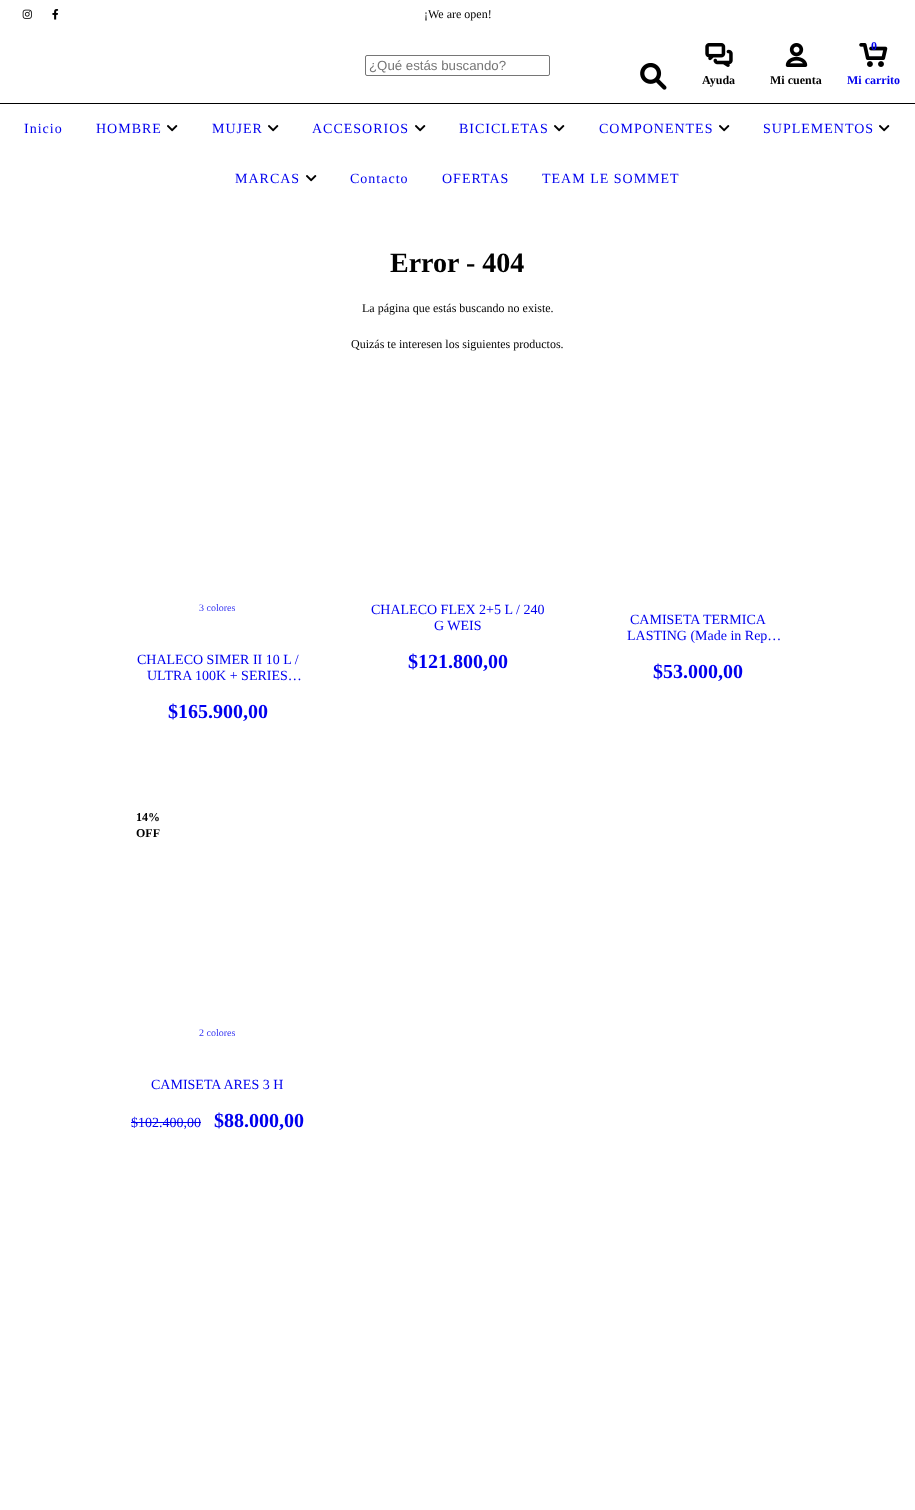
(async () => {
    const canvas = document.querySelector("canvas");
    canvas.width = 915;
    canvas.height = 1510;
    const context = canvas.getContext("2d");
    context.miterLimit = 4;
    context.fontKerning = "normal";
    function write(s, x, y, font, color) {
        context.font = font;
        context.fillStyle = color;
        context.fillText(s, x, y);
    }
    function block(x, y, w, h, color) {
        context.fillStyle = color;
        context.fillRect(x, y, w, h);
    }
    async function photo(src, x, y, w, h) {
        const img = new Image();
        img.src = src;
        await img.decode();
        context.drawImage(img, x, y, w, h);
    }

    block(0, 0, 915, 1510, "rgb(255, 255, 255)");
    await photo("media/1.png", 22, 9, 10, 10);
    await photo("media/2.png", 52, 9, 7, 11);
    write("¡We are open!", 424, 18, "12px Liberation Serif", "rgb(0, 0, 0)");
    context.beginPath();
    context.roundRect(365.5, 55.5, 184, 20, 1.5);
    context.strokeStyle = "rgb(118, 118, 118)";
    context.stroke();
    write("¿Qué estás buscando?", 369, 70, "13.25px Liberation Sans", "rgb(117, 117, 117)");
    await photo("media/3.png", 640, 63, 27, 27);
    await photo("media/4.png", 705, 43, 28, 24);
    write("Ayuda", 702, 84, "bold 12px Liberation Serif", "rgb(0, 0, 0)");
    await photo("media/5.png", 785, 43, 23, 24);
    write("Mi cuenta", 770, 84, "bold 12px Liberation Serif", "rgb(0, 0, 0)");
    await photo("media/6.png", 859, 43, 29, 24);
    write("0", 871, 50, "bold 12px Liberation Serif", "rgb(0, 0, 238)");
    write("Mi carrito", 847, 84, "bold 12px Liberation Serif", "rgb(0, 0, 238)");
    block(0, 103, 915, 1, "rgb(0, 0, 0)");
    context.letterSpacing = "1px";
    write("Inicio", 24, 133, "14px Liberation Serif", "rgb(0, 0, 238)");
    write("HOMBRE", 96, 133, "14px Liberation Serif", "rgb(0, 0, 238)");
    await photo("media/7.png", 167, 125, 11, 7);
    write("MUJER", 212, 133, "14px Liberation Serif", "rgb(0, 0, 238)");
    await photo("media/7.png", 268, 125, 11, 7);
    write("ACCESORIOS", 312, 133, "14px Liberation Serif", "rgb(0, 0, 238)");
    await photo("media/7.png", 415, 125, 11, 7);
    write("BICICLETAS", 459, 133, "14px Liberation Serif", "rgb(0, 0, 238)");
    await photo("media/7.png", 554, 125, 11, 7);
    write("COMPONENTES", 599, 133, "14px Liberation Serif", "rgb(0, 0, 238)");
    await photo("media/7.png", 719, 125, 11, 7);
    write("SUPLEMENTOS", 763, 133, "14px Liberation Serif", "rgb(0, 0, 238)");
    await photo("media/7.png", 879, 125, 11, 7);
    write("MARCAS", 235, 183, "14px Liberation Serif", "rgb(0, 0, 238)");
    await photo("media/7.png", 306, 175, 11, 7);
    write("Contacto", 350, 183, "14px Liberation Serif", "rgb(0, 0, 238)");
    write("OFERTAS", 442, 183, "14px Liberation Serif", "rgb(0, 0, 238)");
    write("TEAM LE SOMMET", 542, 183, "14px Liberation Serif", "rgb(0, 0, 238)");
    context.letterSpacing = "0px";
    write("Error - 404", 390, 272, "bold 28px Liberation Serif", "rgb(0, 0, 0)");
    write("La página que estás buscando no existe.", 362, 312, "12px Liberation Serif", "rgb(0, 0, 0)");
    write("Quizás te interesen los siguientes productos.", 351, 348, "12px Liberation Serif", "rgb(0, 0, 0)");
    write("3 colores", 199, 611, "10px Liberation Serif", "rgb(51, 51, 241)");
    write("CHALECO SIMER II 10 L /", 137, 664, "14px Liberation Serif", "rgb(0, 0, 238)");
    write("ULTRA 100K + SERIES…", 147, 680, "14px Liberation Serif", "rgb(0, 0, 238)");
    write("$165.900,00", 168, 718, "bold 20px Liberation Serif", "rgb(0, 0, 238)");
    write("CHALECO FLEX 2+5 L / 240", 371, 614, "14px Liberation Serif", "rgb(0, 0, 238)");
    write("G WEIS", 434, 630, "14px Liberation Serif", "rgb(0, 0, 238)");
    write("$121.800,00", 408, 668, "bold 20px Liberation Serif", "rgb(0, 0, 238)");
    write("CAMISETA TERMICA", 630, 624, "14px Liberation Serif", "rgb(0, 0, 238)");
    write("LASTING (Made in Rep…", 627, 640, "14px Liberation Serif", "rgb(0, 0, 238)");
    write("$53.000,00", 653, 678, "bold 20px Liberation Serif", "rgb(0, 0, 238)");
    write("14%", 136, 821, "bold 12px Liberation Serif", "rgb(0, 0, 0)");
    write("OFF", 136, 837, "bold 12px Liberation Serif", "rgb(0, 0, 0)");
    write("2 colores", 199, 1036, "10px Liberation Serif", "rgb(51, 51, 241)");
    write("CAMISETA ARES 3 H", 151, 1089, "14px Liberation Serif", "rgb(0, 0, 238)");
    write("$102.400,00", 131, 1127, "14px Liberation Serif", "rgb(0, 0, 238)");
    block(131, 1122, 70, 1, "rgb(0, 0, 238)");
    write("$88.000,00", 214, 1127, "bold 20px Liberation Serif", "rgb(0, 0, 238)");
})();
